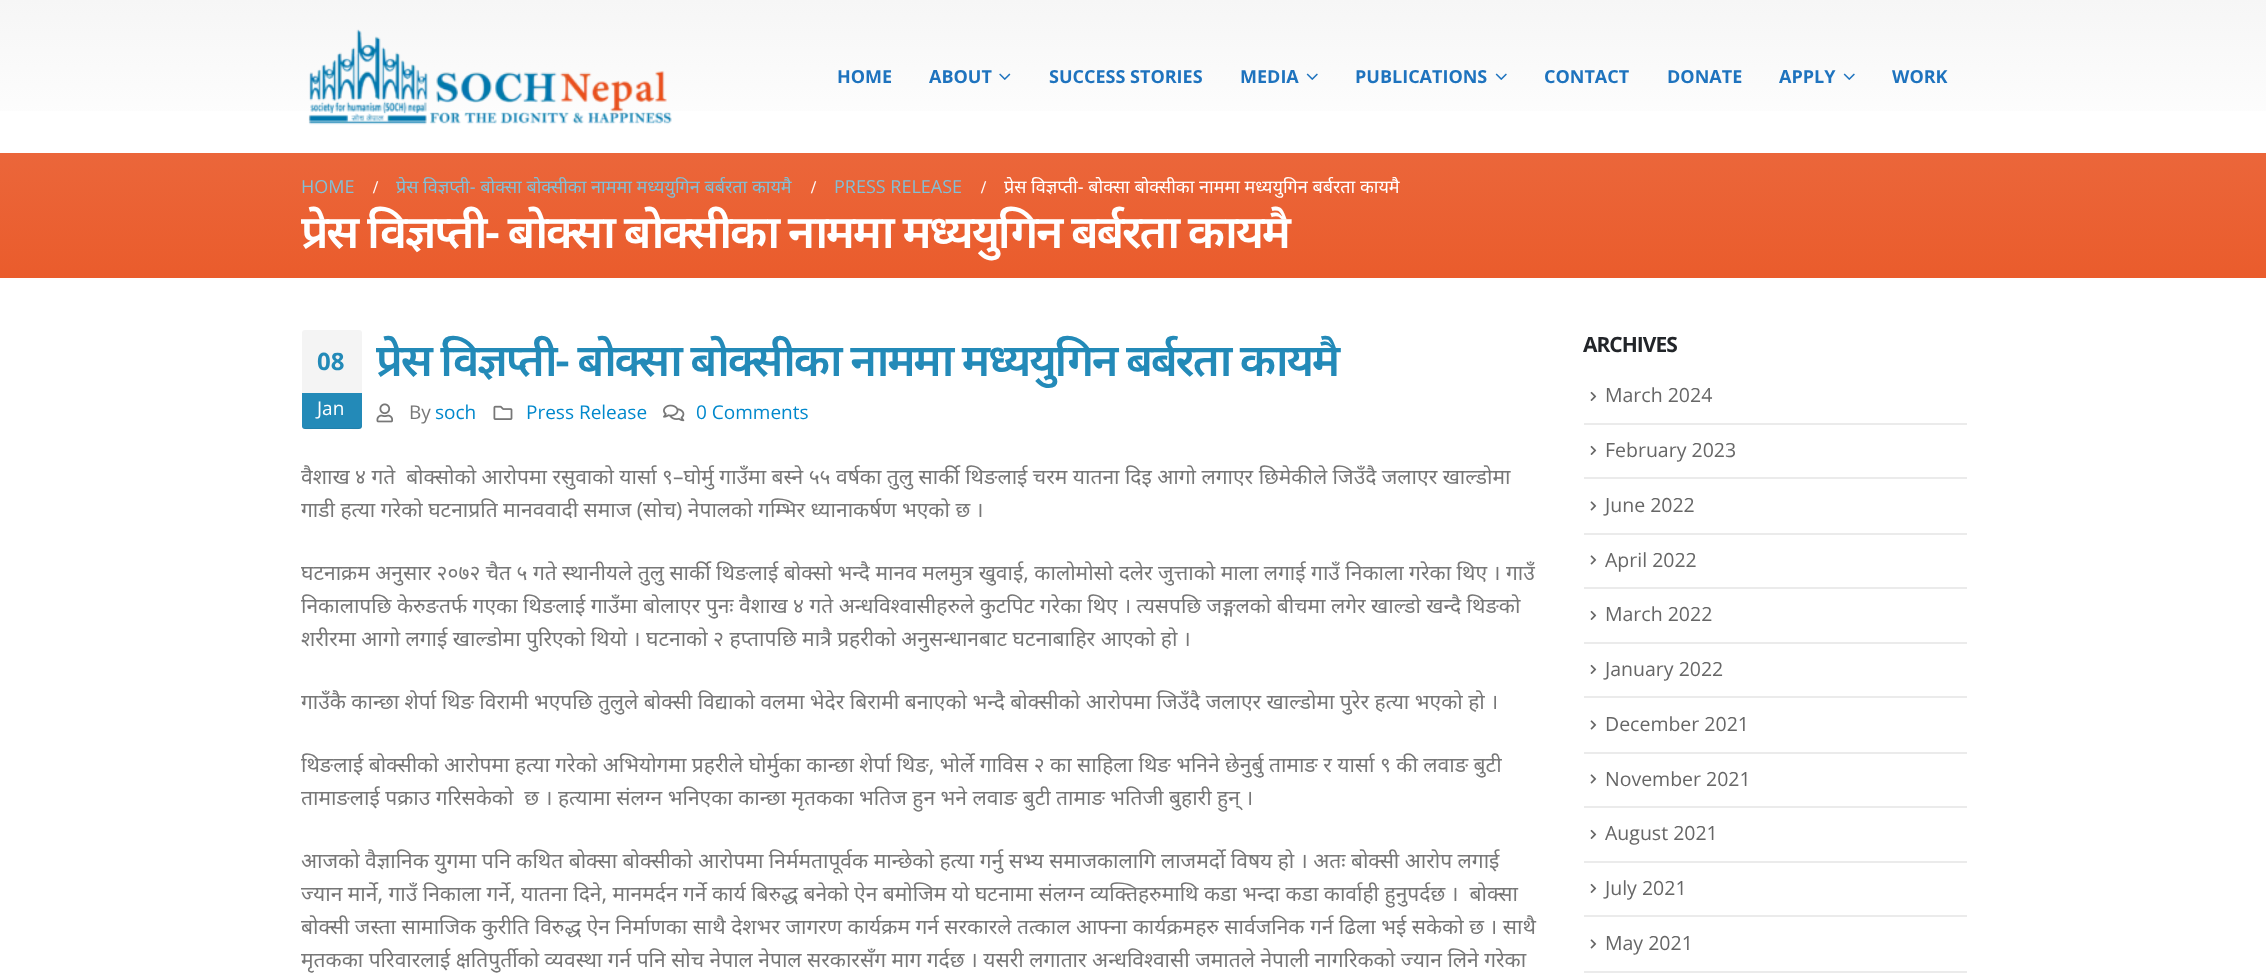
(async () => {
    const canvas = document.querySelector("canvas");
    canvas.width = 2266;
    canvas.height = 976;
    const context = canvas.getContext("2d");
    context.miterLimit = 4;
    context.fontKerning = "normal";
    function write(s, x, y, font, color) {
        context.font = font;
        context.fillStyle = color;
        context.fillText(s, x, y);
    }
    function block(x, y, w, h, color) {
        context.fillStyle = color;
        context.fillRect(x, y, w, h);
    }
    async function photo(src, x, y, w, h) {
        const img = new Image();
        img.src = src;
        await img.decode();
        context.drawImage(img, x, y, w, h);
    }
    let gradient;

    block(0, 0, 2266, 976, "rgb(255, 255, 255)");
    gradient = context.createLinearGradient(1133, 0, 1133, 153);
    gradient.addColorStop(0, "rgb(246, 246, 246)");
    gradient.addColorStop(1, "rgb(255, 255, 255)");
    context.fillStyle = gradient;
    context.fillRect(0, 0, 2266, 111);
    await photo("media/1.png", 308, 29, 364, 96);
    write("HOME", 837, 83, "bold 18px Open Sans", "rgb(30, 115, 190)");
    write("ABOUT", 929, 83, "bold 18px Open Sans", "rgb(30, 115, 190)");
    await photo("media/2.png", 999, 73, 12, 7);
    write("SUCCESS STORIES", 1049, 83, "bold 18px Open Sans", "rgb(30, 115, 190)");
    write("MEDIA", 1240, 83, "bold 18px Open Sans", "rgb(30, 115, 190)");
    await photo("media/3.png", 1306, 73, 12, 7);
    write("PUBLICATIONS", 1355, 83, "bold 18px Open Sans", "rgb(30, 115, 190)");
    await photo("media/3.png", 1495, 73, 12, 7);
    write("CONTACT", 1544, 83, "bold 18px Open Sans", "rgb(30, 115, 190)");
    write("DONATE", 1667, 83, "bold 18px Open Sans", "rgb(30, 115, 190)");
    write("APPLY", 1779, 83, "bold 18px Open Sans", "rgb(30, 115, 190)");
    await photo("media/3.png", 1843, 73, 12, 7);
    write("WORK", 1892, 83, "bold 18px Open Sans", "rgb(30, 115, 190)");
    gradient = context.createLinearGradient(1133, 153, 1133, 278);
    gradient.addColorStop(0, "rgb(235, 102, 58)");
    gradient.addColorStop(1, "rgb(234, 92, 44)");
    context.fillStyle = gradient;
    context.fillRect(0, 153, 2266, 125);
    write("HOME", 301, 193, "18px Open Sans", "rgb(131, 191, 214)");
    write("/", 373, 193, "bold 18px Liberation Serif", "rgb(255, 255, 255)");
    write("प्रेस विज्ञप्ती- बोक्सा बोक्सीका नाममा मध्ययुगिन बर्बरता कायमै", 396, 193, "18px Noto Sans", "rgb(131, 191, 214)");
    write("/", 811, 193, "bold 18px Liberation Serif", "rgb(255, 255, 255)");
    write("PRESS RELEASE", 834, 193, "18px Open Sans", "rgb(131, 191, 214)");
    write("/", 981, 193, "bold 18px Liberation Serif", "rgb(255, 255, 255)");
    write("प्रेस विज्ञप्ती- बोक्सा बोक्सीका नाममा मध्ययुगिन बर्बरता कायमै", 1004, 193, "18px Noto Sans", "rgb(255, 255, 255)");
    context.letterSpacing = "-2.3px";
    context.wordSpacing = "0.25px";
    write("प्रेस विज्ञप्ती- बोक्सा बोक्सीका नाममा मध्ययुगिन बर्बरता कायमै", 301, 248, "600 46.2px Noto Sans", "rgb(255, 255, 255)");
    context.fillStyle = "rgb(244, 244, 244)";
    context.beginPath();
    context.roundRect(302, 330, 60, 63, [3, 3, 0, 0]);
    context.fill();
    context.letterSpacing = "-2.25px";
    write("प्रेस विज्ञप्ती- बोक्सा बोक्सीका नाममा मध्ययुगिन बर्बरता कायमै", 376, 376, "600 45px Noto Sans", "rgb(35, 138, 184)");
    await photo("media/4.png", 376, 403, 17, 20);
    context.letterSpacing = "0px";
    context.wordSpacing = "0px";
    write("By", 409, 419, "19px Open Sans", "rgb(119, 119, 119)");
    write("soch", 435, 419, "19px Open Sans", "rgb(0, 136, 204)");
    await photo("media/5.png", 493, 405, 20, 15);
    write("Press Release", 526, 419, "19px Open Sans", "rgb(0, 136, 204)");
    await photo("media/6.png", 663, 404, 22, 18);
    write("0 Comments", 696, 419, "19px Open Sans", "rgb(0, 136, 204)");
    write("वैशाख ४ गते  बोक्सोको आरोपमा रसुवाको यार्सा ९–घोर्मु गाउँमा बस्ने ५५ वर्षका तुलु सार्की थिङलाई चरम यातना दिइ आगो लगाएर छिमेकीले जिउँदै जलाएर खाल्डोमा", 301, 484, "21px Noto Sans", "rgb(119, 119, 119)");
    write("गाडी हत्या गरेको घटनाप्रति मानववादी समाज (सोच) नेपालको गम्भिर ध्यानाकर्षण भएको छ ।", 301, 517, "21px Noto Sans", "rgb(119, 119, 119)");
    write("घटनाक्रम अनुसार २०७२ चैत ५ गते स्थानीयले तुलु सार्की थिङलाई बोक्सो भन्दै मानव मलमुत्र खुवाई, कालोमोसो दलेर जुत्ताको माला लगाई गाउँ निकाला गरेका थिए । गाउँ", 301, 580, "21px Noto Sans", "rgb(119, 119, 119)");
    write("निकालापछि केरुङतर्फ गएका थिङलाई गाउँमा बोलाएर पुनः वैशाख ४ गते अन्धविश्वासीहरुले कुटपिट गरेका थिए । त्यसपछि जङ्गलको बीचमा लगेर खाल्डो खन्दै थिङको", 301, 613, "21px Noto Sans", "rgb(119, 119, 119)");
    write("शरीरमा आगो लगाई खाल्डोमा पुरिएको थियो । घटनाको २ हप्तापछि मात्रै प्रहरीको अनुसन्धानबाट घटनाबाहिर आएको हो ।", 301, 646, "21px Noto Sans", "rgb(119, 119, 119)");
    write("गाउँकै कान्छा शेर्पा थिङ विरामी भएपछि तुलुले बोक्सी विद्याको वलमा भेदेर बिरामी बनाएको भन्दै बोक्सीको आरोपमा जिउँदै जलाएर खाल्डोमा पुरेर हत्या भएको हो ।", 301, 709, "21px Noto Sans", "rgb(119, 119, 119)");
    write("थिङलाई बोक्सीको आरोपमा हत्या गरेको अभियोगमा प्रहरीले घोर्मुका कान्छा शेर्पा थिङ, भोर्ले गाविस २ का साहिला थिङ भनिने छेनुर्बु तामाङ र यार्सा ९ की लवाङ बुटी", 301, 772, "21px Noto Sans", "rgb(119, 119, 119)");
    write("तामाङलाई पक्राउ गरिसकेको  छ । हत्यामा संलग्न भनिएका कान्छा मृतकका भतिज हुन भने लवाङ बुटी तामाङ भतिजी बुहारी हुन् ।", 301, 805, "21px Noto Sans", "rgb(119, 119, 119)");
    write("आजको वैज्ञानिक युगमा पनि कथित बोक्सा बोक्सीको आरोपमा निर्ममतापूर्वक मान्छेको हत्या गर्नु सभ्य समाजकालागि लाजमर्दो विषय हो । अतः बोक्सी आरोप लगाई", 301, 868, "21px Noto Sans", "rgb(119, 119, 119)");
    write("ज्यान मार्ने, गाउँ निकाला गर्ने, यातना दिने, मानमर्दन गर्ने कार्य बिरुद्ध बनेको ऐन बमोजिम यो घटनामा संलग्न व्यक्तिहरुमाथि कडा भन्दा कडा कार्वाही हुनुपर्दछ ।  बोक्सा", 301, 901, "21px Noto Sans", "rgb(119, 119, 119)");
    write("बोक्सी जस्ता सामाजिक कुरीति विरुद्ध ऐन निर्माणका साथै देशभर जागरण कार्यक्रम गर्न सरकारले तत्काल आफ्ना कार्यक्रमहरु सार्वजनिक गर्न ढिला भई सकेको छ । साथै", 301, 934, "21px Noto Sans", "rgb(119, 119, 119)");
    write("मृतकका परिवारलाई क्षतिपुर्तीको व्यवस्था गर्न पनि सोच नेपाल नेपाल सरकारसँग माग गर्दछ । यसरी लगातार अन्धविश्वासी जमातले नेपाली नागरिकको ज्यान लिने गरेका", 301, 967, "21px Noto Sans", "rgb(119, 119, 119)");
    write("08", 317, 370, "bold 24px Open Sans", "rgb(35, 138, 184)");
    context.beginPath();
    context.roundRect(302, 393, 60, 36, [0, 0, 3, 3]);
    context.fill();
    context.fillStyle = "rgba(0, 0, 0, 0.07)";
    context.beginPath();
    context.moveTo(302, 424);
    context.bezierCurveTo(302, 431, 307, 429, 314, 429);
    context.lineTo(350, 429);
    context.bezierCurveTo(357, 429, 362, 431, 362, 424);
    context.bezierCurveTo(362, 426, 360, 428, 358, 428);
    context.lineTo(304, 428);
    context.bezierCurveTo(303, 428, 302, 426, 302, 424);
    context.closePath();
    context.fill();
    write("Jan", 317, 415, "19px Open Sans", "rgb(255, 255, 255)");
    context.letterSpacing = "-1px";
    write("ARCHIVES", 1583, 352, "bold 21px Open Sans", "rgb(34, 37, 41)");
    await photo("media/7.png", 1590, 391, 7, 10);
    context.letterSpacing = "0px";
    write("March 2024", 1605, 402, "19.5px Open Sans", "rgb(102, 102, 102)");
    block(1584, 423, 383, 2, "rgb(235, 235, 235)");
    await photo("media/7.png", 1590, 445, 7, 10);
    write("February 2023", 1605, 457, "19.5px Open Sans", "rgb(102, 102, 102)");
    block(1584, 477, 383, 2, "rgb(235, 235, 235)");
    await photo("media/8.png", 1590, 501, 7, 10);
    write("June 2022", 1605, 512, "19.5px Open Sans", "rgb(102, 102, 102)");
    block(1584, 533, 383, 2, "rgb(235, 235, 235)");
    await photo("media/8.png", 1590, 555, 7, 10);
    write("April 2022", 1605, 567, "19.5px Open Sans", "rgb(102, 102, 102)");
    block(1584, 587, 383, 2, "rgb(235, 235, 235)");
    await photo("media/7.png", 1590, 610, 7, 10);
    write("March 2022", 1605, 621, "19.5px Open Sans", "rgb(102, 102, 102)");
    block(1584, 642, 383, 2, "rgb(235, 235, 235)");
    await photo("media/7.png", 1590, 664, 7, 10);
    write("January 2022", 1605, 676, "19.5px Open Sans", "rgb(102, 102, 102)");
    block(1584, 696, 383, 2, "rgb(235, 235, 235)");
    await photo("media/8.png", 1590, 720, 7, 10);
    write("December 2021", 1605, 731, "19.5px Open Sans", "rgb(102, 102, 102)");
    block(1584, 752, 383, 2, "rgb(235, 235, 235)");
    await photo("media/8.png", 1590, 774, 7, 10);
    write("November 2021", 1605, 786, "19.5px Open Sans", "rgb(102, 102, 102)");
    block(1584, 806, 383, 2, "rgb(235, 235, 235)");
    await photo("media/7.png", 1590, 829, 7, 10);
    write("August 2021", 1605, 840, "19.5px Open Sans", "rgb(102, 102, 102)");
    block(1584, 861, 383, 2, "rgb(235, 235, 235)");
    await photo("media/7.png", 1590, 883, 7, 10);
    write("July 2021", 1605, 895, "19.5px Open Sans", "rgb(102, 102, 102)");
    block(1584, 915, 383, 2, "rgb(235, 235, 235)");
    await photo("media/8.png", 1590, 939, 7, 10);
    write("May 2021", 1605, 950, "19.5px Open Sans", "rgb(102, 102, 102)");
    block(1584, 971, 383, 2, "rgb(235, 235, 235)");
})();
